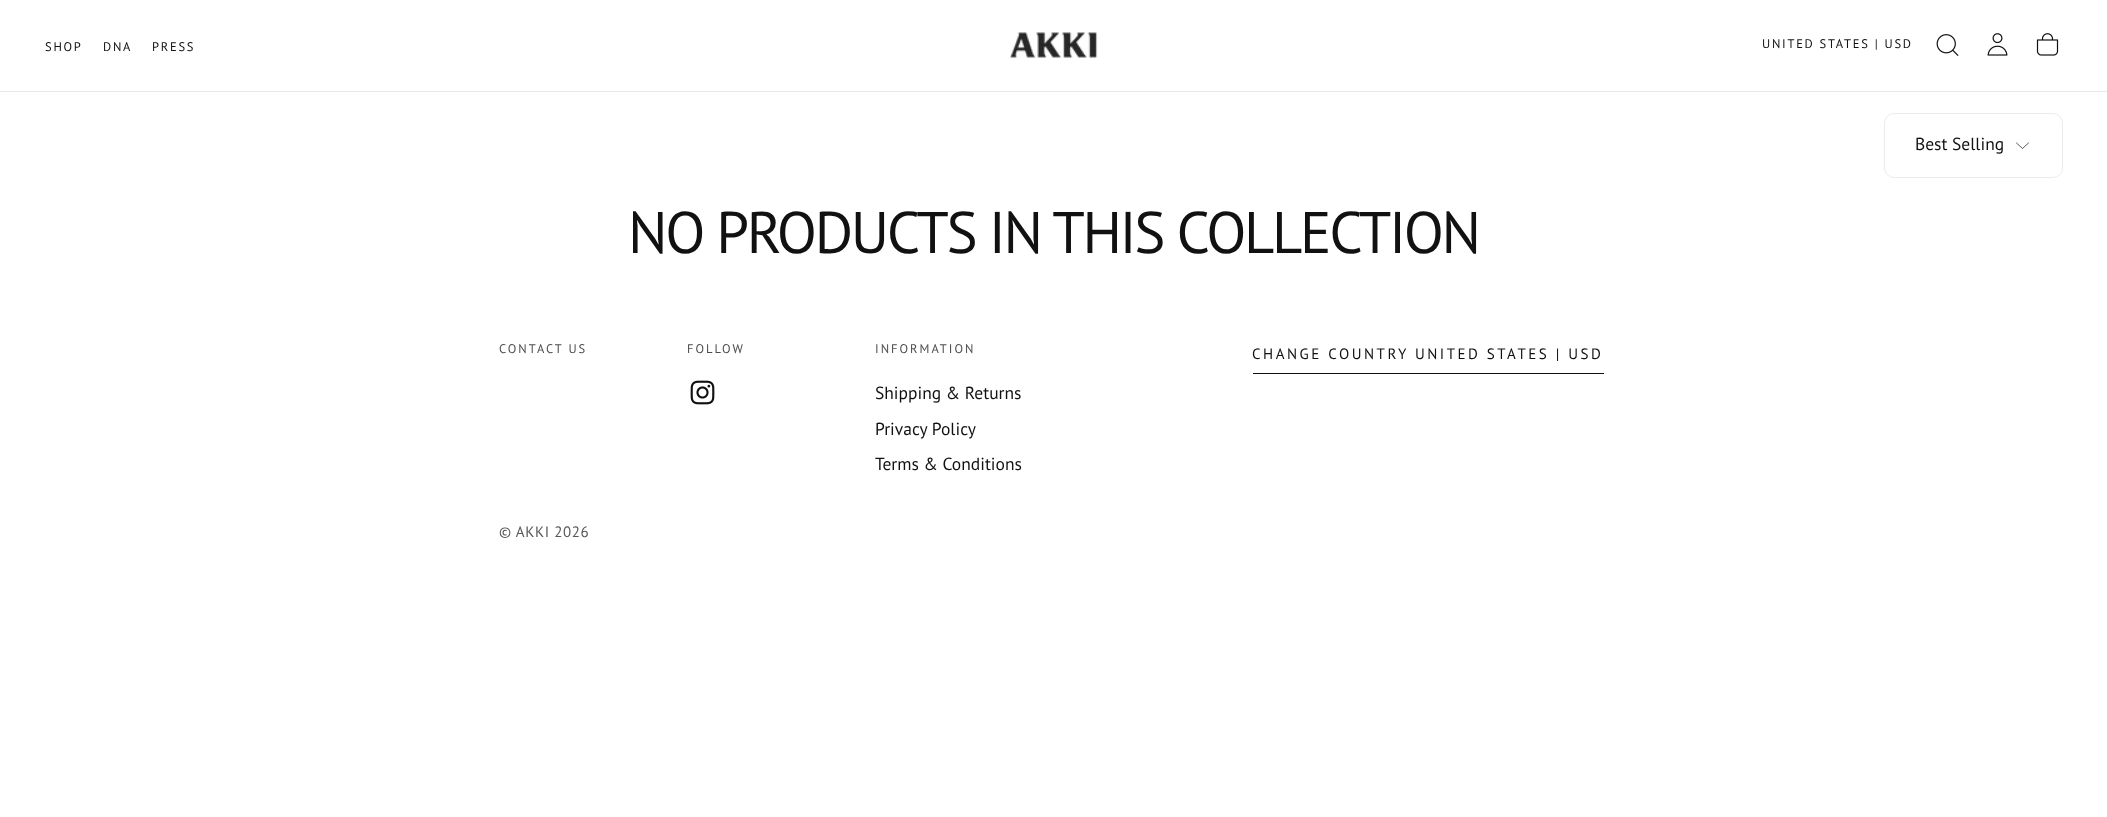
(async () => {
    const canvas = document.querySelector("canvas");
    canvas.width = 2107;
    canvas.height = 817;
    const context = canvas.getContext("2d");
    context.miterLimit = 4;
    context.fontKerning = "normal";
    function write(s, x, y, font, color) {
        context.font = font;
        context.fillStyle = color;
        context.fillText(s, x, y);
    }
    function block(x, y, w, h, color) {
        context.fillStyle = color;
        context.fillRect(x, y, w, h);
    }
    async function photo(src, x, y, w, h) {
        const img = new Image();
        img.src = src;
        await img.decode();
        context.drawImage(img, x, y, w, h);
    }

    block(0, 0, 2107, 817, "rgb(255, 255, 255)");
    block(0, 91, 2107, 1, "rgb(231, 231, 231)");
    context.letterSpacing = "1.75px";
    write("SHOP", 45, 51, "12.5px PT Sans", "rgb(17, 17, 17)");
    write("DNA", 103, 51, "12.5px PT Sans", "rgb(17, 17, 17)");
    write("PRESS", 152, 51, "12.5px PT Sans", "rgb(17, 17, 17)");
    await photo("media/1.png", 1010, 32, 88, 26);
    write("UNITED STATES | USD", 1762, 48, "12.5px PT Sans", "rgb(17, 17, 17)");
    await photo("media/2.png", 1936, 34, 23, 22);
    await photo("media/3.png", 1987, 33, 21, 23);
    await photo("media/4.png", 2036, 33, 23, 23);
    context.beginPath();
    context.roundRect(1884.5, 113.5, 178, 64, 9.5);
    context.strokeStyle = "rgb(235, 235, 235)";
    context.stroke();
    context.letterSpacing = "0px";
    write("Best Selling", 1915, 150, "17.5px PT Sans", "rgb(17, 17, 17)");
    context.beginPath();
    context.moveTo(2016.5, 143);
    context.lineTo(2022.5, 148.5);
    context.lineTo(2028.5, 143);
    context.strokeStyle = "rgb(17, 17, 17)";
    context.lineWidth = 0.7;
    context.lineCap = "round";
    context.lineJoin = "round";
    context.stroke();
    context.letterSpacing = "-2.35px";
    write("NO PRODUCTS IN THIS COLLECTION", 628, 253, "58.75px PT Sans", "rgb(17, 17, 17)");
    context.letterSpacing = "2px";
    write("CONTACT US", 499, 353, "12.5px PT Sans", "rgb(77, 77, 77)");
    write("FOLLOW", 687, 353, "12.5px PT Sans", "rgb(77, 77, 77)");
    await photo("media/5.png", 690, 380, 25, 25);
    write("INFORMATION", 875, 353, "12.5px PT Sans", "rgb(77, 77, 77)");
    context.letterSpacing = "0px";
    write("Shipping & Returns", 875, 399, "17.5px PT Sans", "rgb(17, 17, 17)");
    write("Privacy Policy", 875, 435, "17.5px PT Sans", "rgb(17, 17, 17)");
    write("Terms & Conditions", 875, 470, "17.5px PT Sans", "rgb(17, 17, 17)");
    context.letterSpacing = "2.5px";
    write("CHANGE COUNTRY UNITED STATES | USD", 1252, 359, "15px PT Sans", "rgb(17, 17, 17)");
    block(1253, 373, 351, 1, "rgb(17, 17, 17)");
    context.letterSpacing = "0.6px";
    write("© AKKI 2026", 499, 537, "15px PT Sans", "rgb(88, 88, 88)");
})();
